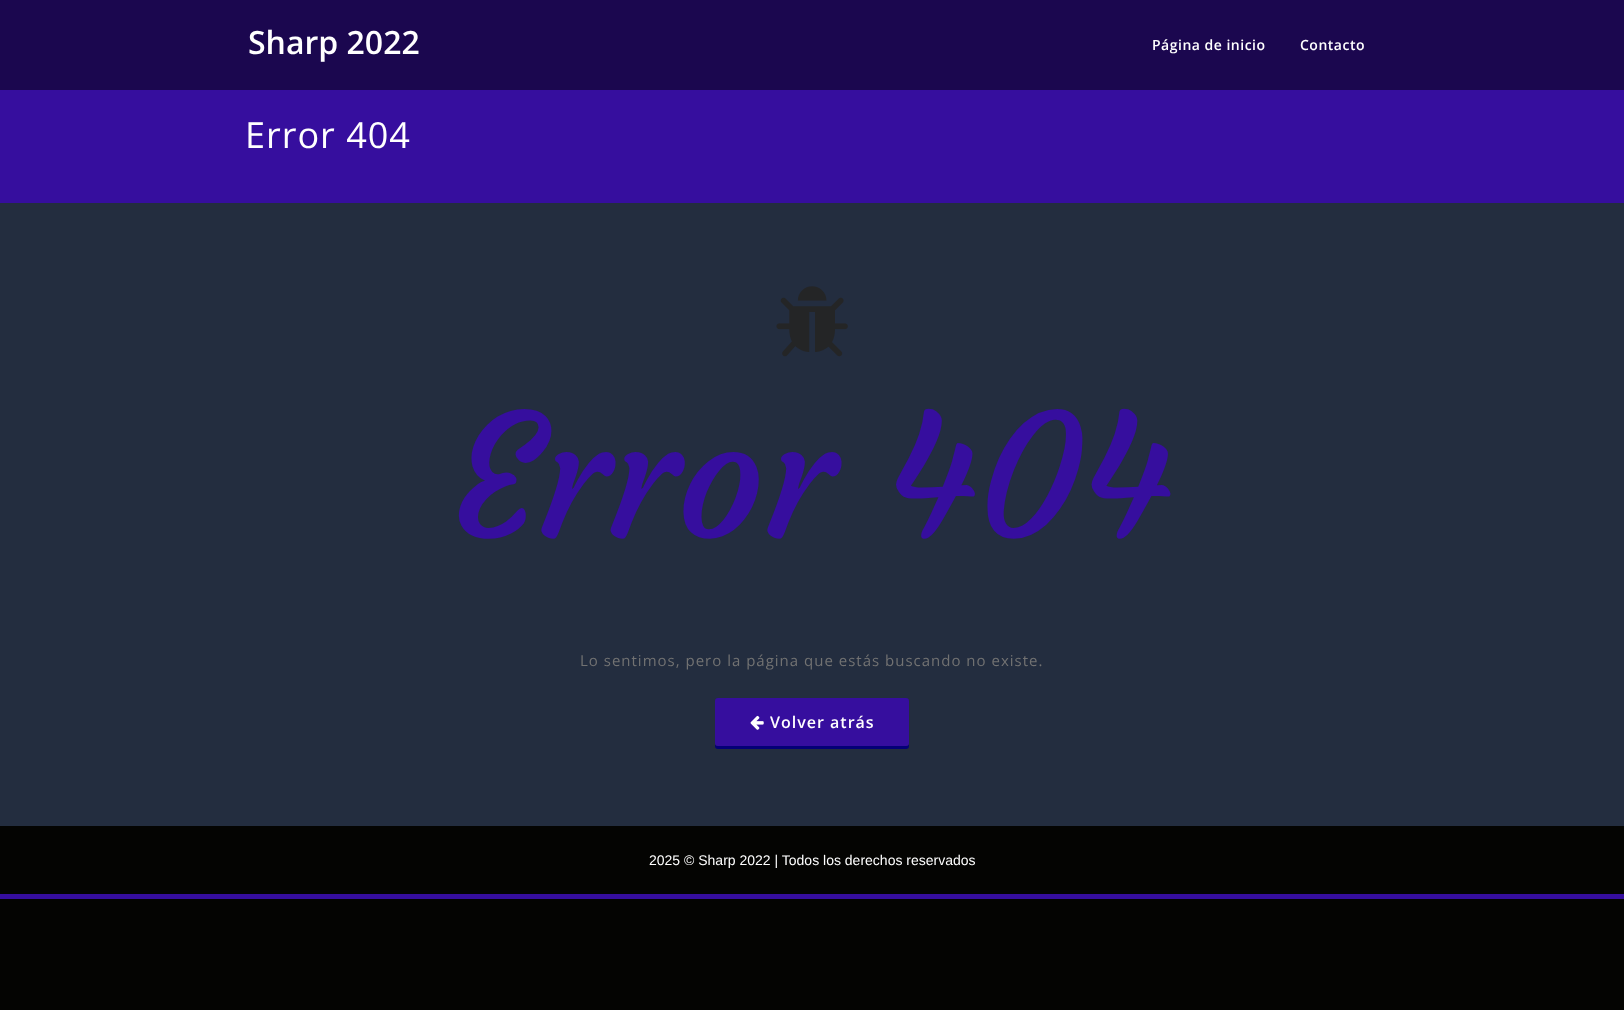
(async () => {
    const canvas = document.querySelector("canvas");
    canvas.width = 1624;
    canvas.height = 1010;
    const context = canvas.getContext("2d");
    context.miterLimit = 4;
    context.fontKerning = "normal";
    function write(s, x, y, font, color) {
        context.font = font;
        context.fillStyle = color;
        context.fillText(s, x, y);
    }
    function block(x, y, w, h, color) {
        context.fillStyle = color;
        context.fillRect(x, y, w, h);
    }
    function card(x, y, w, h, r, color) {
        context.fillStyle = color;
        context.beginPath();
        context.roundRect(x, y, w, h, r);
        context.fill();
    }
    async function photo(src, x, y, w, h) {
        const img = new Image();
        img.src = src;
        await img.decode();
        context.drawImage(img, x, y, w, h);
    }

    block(0, 0, 1624, 1010, "rgb(4, 4, 2)");
    block(0, 0, 1624, 90, "rgb(27, 7, 79)");
    write("Sharp 2022", 248, 54, "600 32px Open Sans", "rgb(255, 255, 255)");
    context.letterSpacing = "0.5px";
    write("Página de inicio", 1152, 50, "600 14px Open Sans", "rgb(255, 255, 255)");
    write("Contacto", 1300, 50, "600 14px Open Sans", "rgb(255, 255, 255)");
    block(0, 90, 1624, 113, "rgb(54, 14, 158)");
    context.letterSpacing = "1px";
    write("Error 404", 245, 148, "36px Open Sans", "rgb(255, 255, 255)");
    block(0, 203, 1624, 623, "rgb(35, 45, 63)");
    await photo("media/1.png", 776, 286, 72, 71);
    context.letterSpacing = "0px";
    write("Error 404", 452, 538, "170px Courgette", "rgb(54, 14, 158)");
    context.letterSpacing = "1px";
    write("Lo sentimos, pero la página que estás buscando no existe.", 580, 666, "15px Open Sans", "rgb(114, 114, 114)");
    context.fillStyle = "rgb(4, 0, 118)";
    context.beginPath();
    context.moveTo(715, 743);
    context.lineTo(715, 746);
    context.bezierCurveTo(715, 748, 716, 749, 718, 749);
    context.lineTo(906, 749);
    context.bezierCurveTo(908, 749, 909, 748, 909, 746);
    context.lineTo(909, 743);
    context.bezierCurveTo(909, 745, 908, 746, 906, 746);
    context.lineTo(718, 746);
    context.bezierCurveTo(716, 746, 715, 745, 715, 743);
    context.closePath();
    context.fill();
    card(715, 698, 194, 48, 3, "rgb(54, 14, 158)");
    await photo("media/2.png", 750, 715, 14, 15);
    write("Volver atrás", 770, 728, "600 16px Open Sans", "rgb(255, 255, 255)");
    block(0, 894, 1624, 5, "rgb(54, 14, 158)");
    context.letterSpacing = "0px";
    write("2025 © Sharp 2022 | Todos los derechos reservados", 649, 865, "14px Liberation Sans", "rgb(255, 255, 255)");
})();
